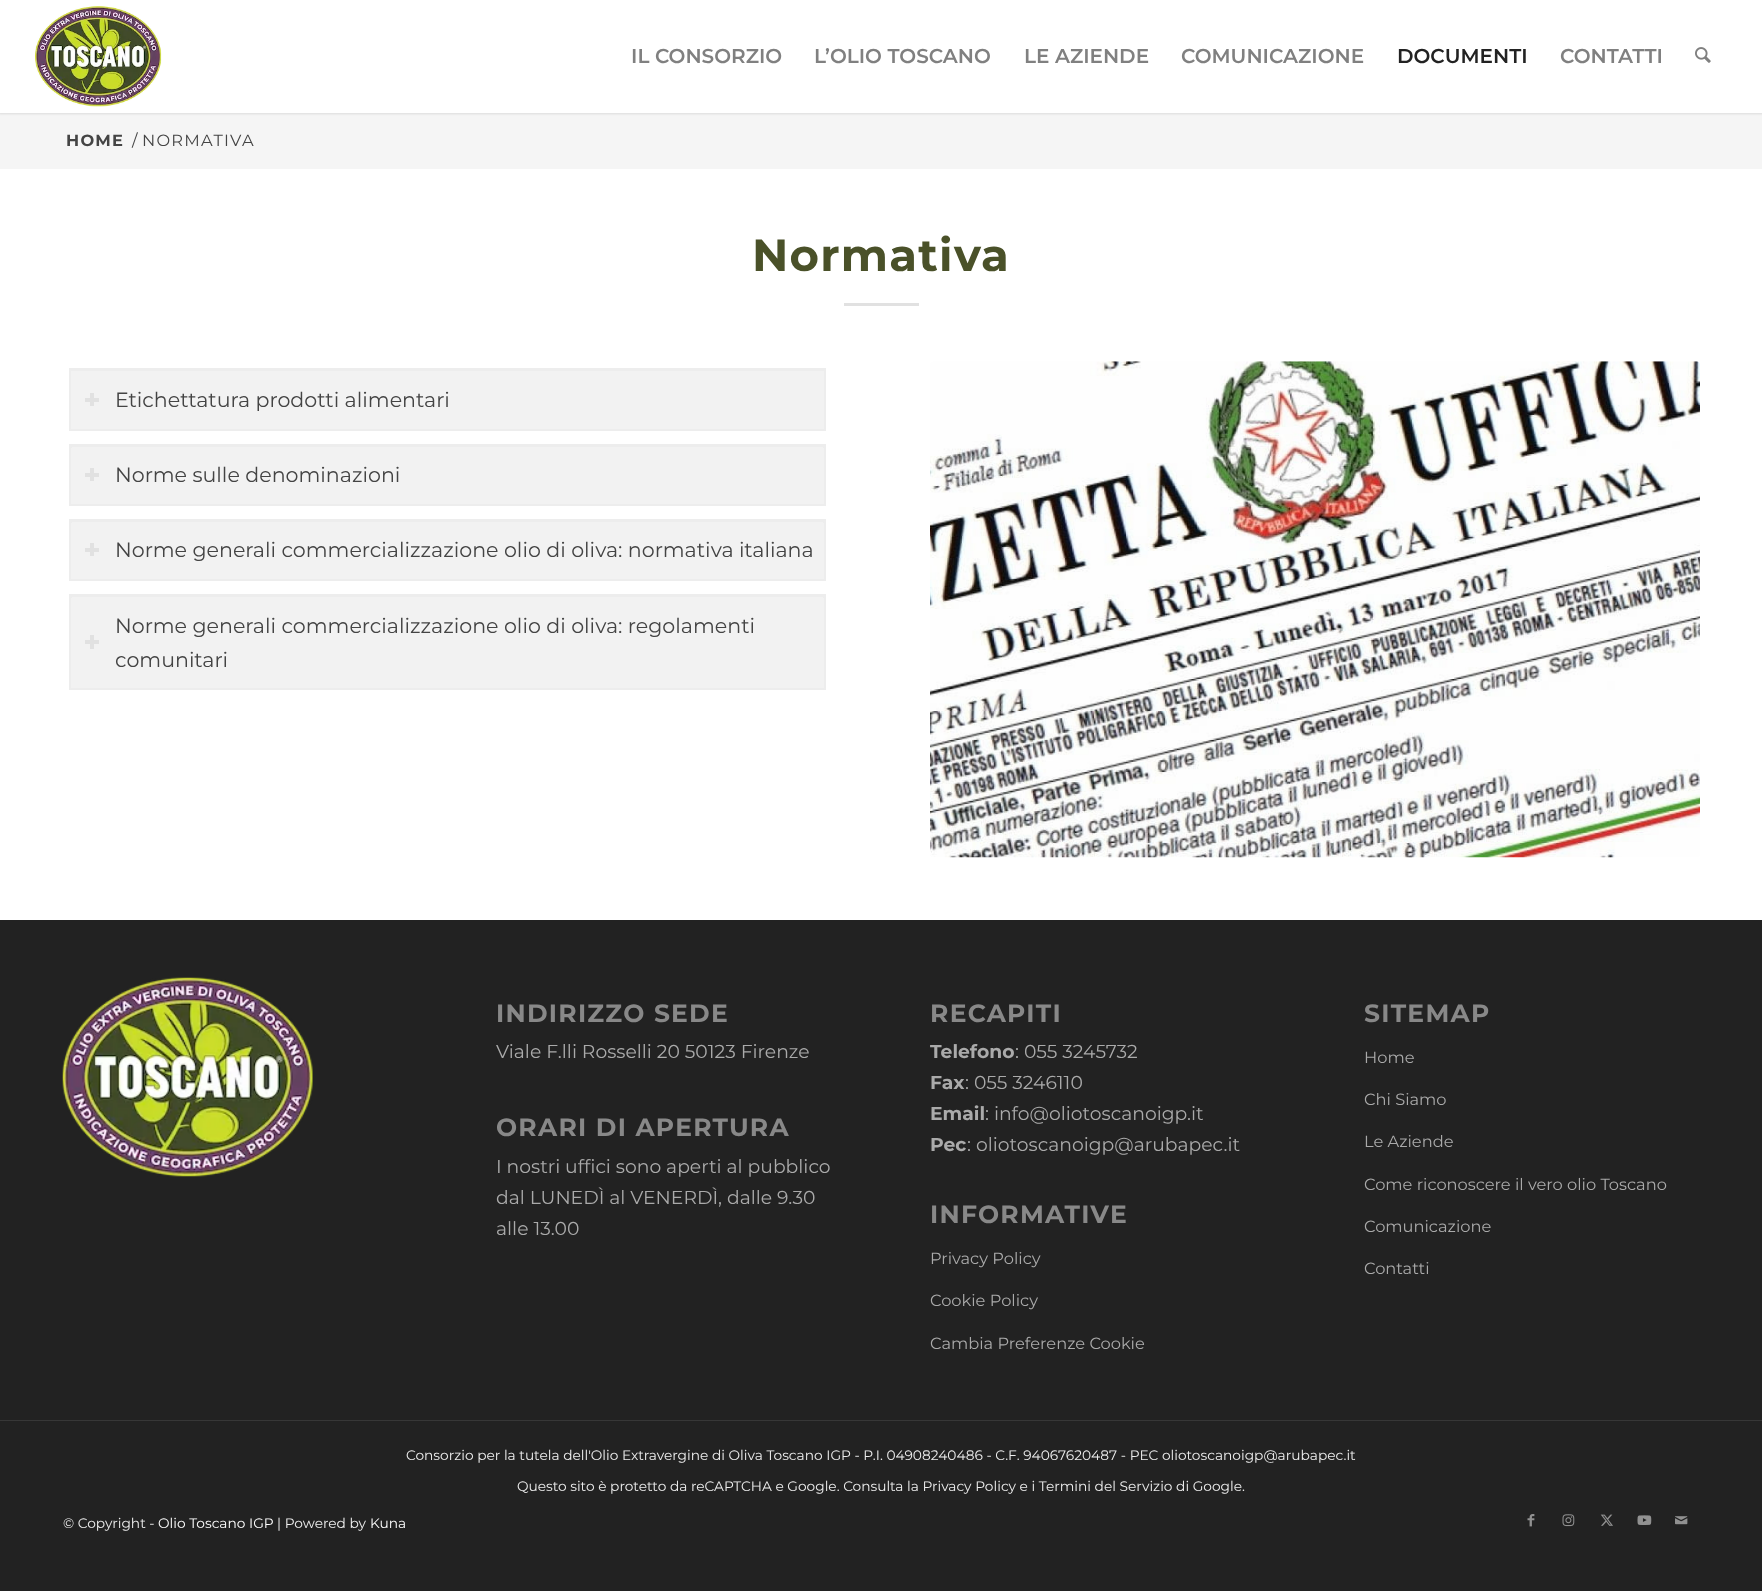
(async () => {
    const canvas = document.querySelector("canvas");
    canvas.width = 1762;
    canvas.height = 1591;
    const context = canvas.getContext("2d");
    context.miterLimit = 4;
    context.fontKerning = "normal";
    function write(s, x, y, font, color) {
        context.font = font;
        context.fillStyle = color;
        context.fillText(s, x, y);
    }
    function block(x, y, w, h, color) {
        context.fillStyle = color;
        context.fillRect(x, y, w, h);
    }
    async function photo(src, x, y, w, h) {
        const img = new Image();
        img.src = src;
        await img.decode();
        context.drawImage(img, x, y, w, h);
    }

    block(0, 0, 1762, 1591, "rgb(34, 34, 34)");
    block(0, 169, 1762, 751, "rgb(255, 255, 255)");
    block(0, 113, 1762, 56, "rgb(245, 245, 245)");
    context.fillStyle = "rgba(0, 0, 0, 0.1)";
    context.filter = "blur(1px)";
    context.beginPath();
    context.rect(-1, -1, 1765, 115);
    context.fill();
    context.filter = "none";
    block(0, 0, 1762, 113, "rgb(255, 255, 255)");
    await photo("media/1.png", 35, 6, 127, 101);
    write("IL CONSORZIO", 631, 63, "600 20px Montserrat", "rgb(128, 128, 128)");
    write("L’OLIO TOSCANO", 814, 63, "600 20px Montserrat", "rgb(128, 128, 128)");
    write("LE AZIENDE", 1024, 63, "600 20px Montserrat", "rgb(128, 128, 128)");
    write("COMUNICAZIONE", 1181, 63, "600 20px Montserrat", "rgb(128, 128, 128)");
    write("DOCUMENTI", 1397, 63, "600 20px Montserrat", "rgb(34, 34, 34)");
    write("CONTATTI", 1560, 63, "600 20px Montserrat", "rgb(128, 128, 128)");
    await photo("media/2.png", 1695, 47, 16, 16);
    context.letterSpacing = "1.25px";
    write("HOME", 66, 146, "bold 16.25px Montserrat", "rgb(68, 68, 68)");
    write("/", 132, 146, "100 16.25px Montserrat", "rgb(68, 68, 68)");
    write("NORMATIVA", 142, 146, "100 16.25px Montserrat", "rgb(68, 68, 68)");
    write("Normativa", 752, 271, "bold 45px Montserrat", "rgb(74, 81, 41)");
    block(844, 303, 75, 3, "rgb(225, 225, 225)");
    context.strokeStyle = "rgb(237, 237, 237)";
    context.lineWidth = 3;
    context.strokeRect(70.5, 369.5, 754, 60);
    block(71, 371, 753, 58, "rgb(242, 242, 242)");
    block(90, 393, 4, 13, "rgb(225, 225, 225)");
    block(85, 398, 14, 4, "rgb(225, 225, 225)");
    context.letterSpacing = "0px";
    write("Etichettatura prodotti alimentari", 115, 407, "100 20.6px Montserrat", "rgb(68, 68, 68)");
    block(72, 447, 751, 1, "rgb(242, 242, 242)");
    context.strokeRect(70.5, 445.5, 754, 59);
    block(71, 448, 753, 56, "rgb(242, 242, 242)");
    block(90, 468, 4, 13, "rgb(225, 225, 225)");
    block(85, 473, 14, 4, "rgb(225, 225, 225)");
    write("Norme sulle denominazioni", 115, 482, "100 20.6px Montserrat", "rgb(68, 68, 68)");
    block(72, 522, 751, 1, "rgb(242, 242, 242)");
    context.strokeRect(70.5, 520.5, 754, 59);
    block(71, 523, 753, 56, "rgb(242, 242, 242)");
    block(90, 543, 4, 13, "rgb(225, 225, 225)");
    block(85, 548, 14, 4, "rgb(225, 225, 225)");
    write("Norme generali commercializzazione olio di oliva: normativa italiana", 115, 557, "100 20.6px Montserrat", "rgb(68, 68, 68)");
    block(72, 597, 751, 1, "rgb(242, 242, 242)");
    context.strokeRect(70.5, 595.5, 754, 93);
    block(71, 598, 753, 90, "rgb(242, 242, 242)");
    write("Norme generali commercializzazione olio di oliva: regolamenti", 115, 633, "100 20.6px Montserrat", "rgb(68, 68, 68)");
    block(90, 635, 4, 14, "rgb(225, 225, 225)");
    block(85, 640, 14, 4, "rgb(225, 225, 225)");
    write("comunitari", 115, 667, "100 20.6px Montserrat", "rgb(68, 68, 68)");
    await photo("media/3.png", 930, 361, 770, 497);
    await photo("media/4.png", 62, 977, 251, 200);
    context.letterSpacing = "1.25px";
    write("INDIRIZZO SEDE", 496, 1022, "bold 25px Montserrat", "rgb(136, 136, 136)");
    context.letterSpacing = "0px";
    write("Viale F.lli Rosselli 20 50123 Firenze", 496, 1058, "100 18.75px Montserrat", "rgb(170, 170, 170)");
    context.letterSpacing = "1.25px";
    write("ORARI DI APERTURA", 496, 1136, "bold 25px Montserrat", "rgb(136, 136, 136)");
    context.letterSpacing = "0px";
    write("I nostri uffici sono aperti al pubblico", 496, 1173, "100 18.75px Montserrat", "rgb(170, 170, 170)");
    write("dal LUNEDÌ al VENERDÌ, dalle 9.30", 496, 1204, "100 18.75px Montserrat", "rgb(170, 170, 170)");
    write("alle 13.00", 496, 1235, "100 18.75px Montserrat", "rgb(170, 170, 170)");
    context.letterSpacing = "1.25px";
    write("RECAPITI", 930, 1022, "bold 25px Montserrat", "rgb(136, 136, 136)");
    context.letterSpacing = "0px";
    write("Telefono", 930, 1058, "bold 18.75px Montserrat", "rgb(170, 170, 170)");
    write(": 055 3245732", 1015, 1058, "100 18.75px Montserrat", "rgb(170, 170, 170)");
    write("Fax", 930, 1089, "bold 18.75px Montserrat", "rgb(170, 170, 170)");
    write(": 055 3246110", 965, 1089, "100 18.75px Montserrat", "rgb(170, 170, 170)");
    write("Email", 930, 1120, "bold 18.75px Montserrat", "rgb(170, 170, 170)");
    write(": info@oliotoscanoigp.it", 985, 1120, "100 18.75px Montserrat", "rgb(170, 170, 170)");
    write("Pec", 930, 1151, "bold 18.75px Montserrat", "rgb(170, 170, 170)");
    write(": oliotoscanoigp@arubapec.it", 967, 1151, "100 18.75px Montserrat", "rgb(170, 170, 170)");
    context.letterSpacing = "1.25px";
    write("INFORMATIVE", 930, 1223, "bold 25px Montserrat", "rgb(136, 136, 136)");
    context.letterSpacing = "0px";
    write("Privacy Policy", 930, 1264, "100 16.25px Montserrat", "rgb(170, 170, 170)");
    write("Cookie Policy", 930, 1306, "100 16.25px Montserrat", "rgb(170, 170, 170)");
    write("Cambia Preferenze Cookie", 930, 1349, "100 16.25px Montserrat", "rgb(170, 170, 170)");
    context.letterSpacing = "1.25px";
    write("SITEMAP", 1364, 1022, "bold 25px Montserrat", "rgb(136, 136, 136)");
    context.letterSpacing = "0px";
    write("Home", 1364, 1063, "100 16.25px Montserrat", "rgb(170, 170, 170)");
    write("Chi Siamo", 1364, 1105, "100 16.25px Montserrat", "rgb(170, 170, 170)");
    write("Le Aziende", 1364, 1147, "100 16.25px Montserrat", "rgb(170, 170, 170)");
    write("Come riconoscere il vero olio Toscano", 1364, 1190, "100 16.25px Montserrat", "rgb(170, 170, 170)");
    write("Comunicazione", 1364, 1232, "100 16.25px Montserrat", "rgb(170, 170, 170)");
    write("Contatti", 1364, 1274, "100 16.25px Montserrat", "rgb(170, 170, 170)");
    block(0, 1420, 1762, 1, "rgb(55, 55, 55)");
    write("Consorzio per la tutela dell'Olio Extravergine di Oliva Toscano IGP - P.I. 04908240486 - C.F. 94067620487 - PEC oliotoscanoigp@arubapec.it", 406, 1460, "100 13.75px Montserrat", "rgb(238, 238, 238)");
    write("Questo sito è protetto da reCAPTCHA e Google. Consulta la Privacy Policy e i Termini del Servizio di Google.", 517, 1491, "100 13.75px Montserrat", "rgb(238, 238, 238)");
    write("© Copyright -", 63, 1528, "100 13.75px Montserrat", "rgb(238, 238, 238)");
    write("Olio Toscano IGP", 158, 1528, "100 13.75px Montserrat", "rgb(255, 255, 255)");
    write("| Powered by", 277, 1528, "100 13.75px Montserrat", "rgb(238, 238, 238)");
    write("Kuna", 370, 1528, "100 13.75px Montserrat", "rgb(255, 255, 255)");
    await photo("media/5.png", 1527, 1514, 8, 13);
    await photo("media/6.png", 1562, 1514, 13, 13);
    await photo("media/7.png", 1600, 1514, 13, 12);
    await photo("media/8.png", 1637, 1515, 15, 10);
    await photo("media/9.png", 1675, 1516, 13, 9);
})();
